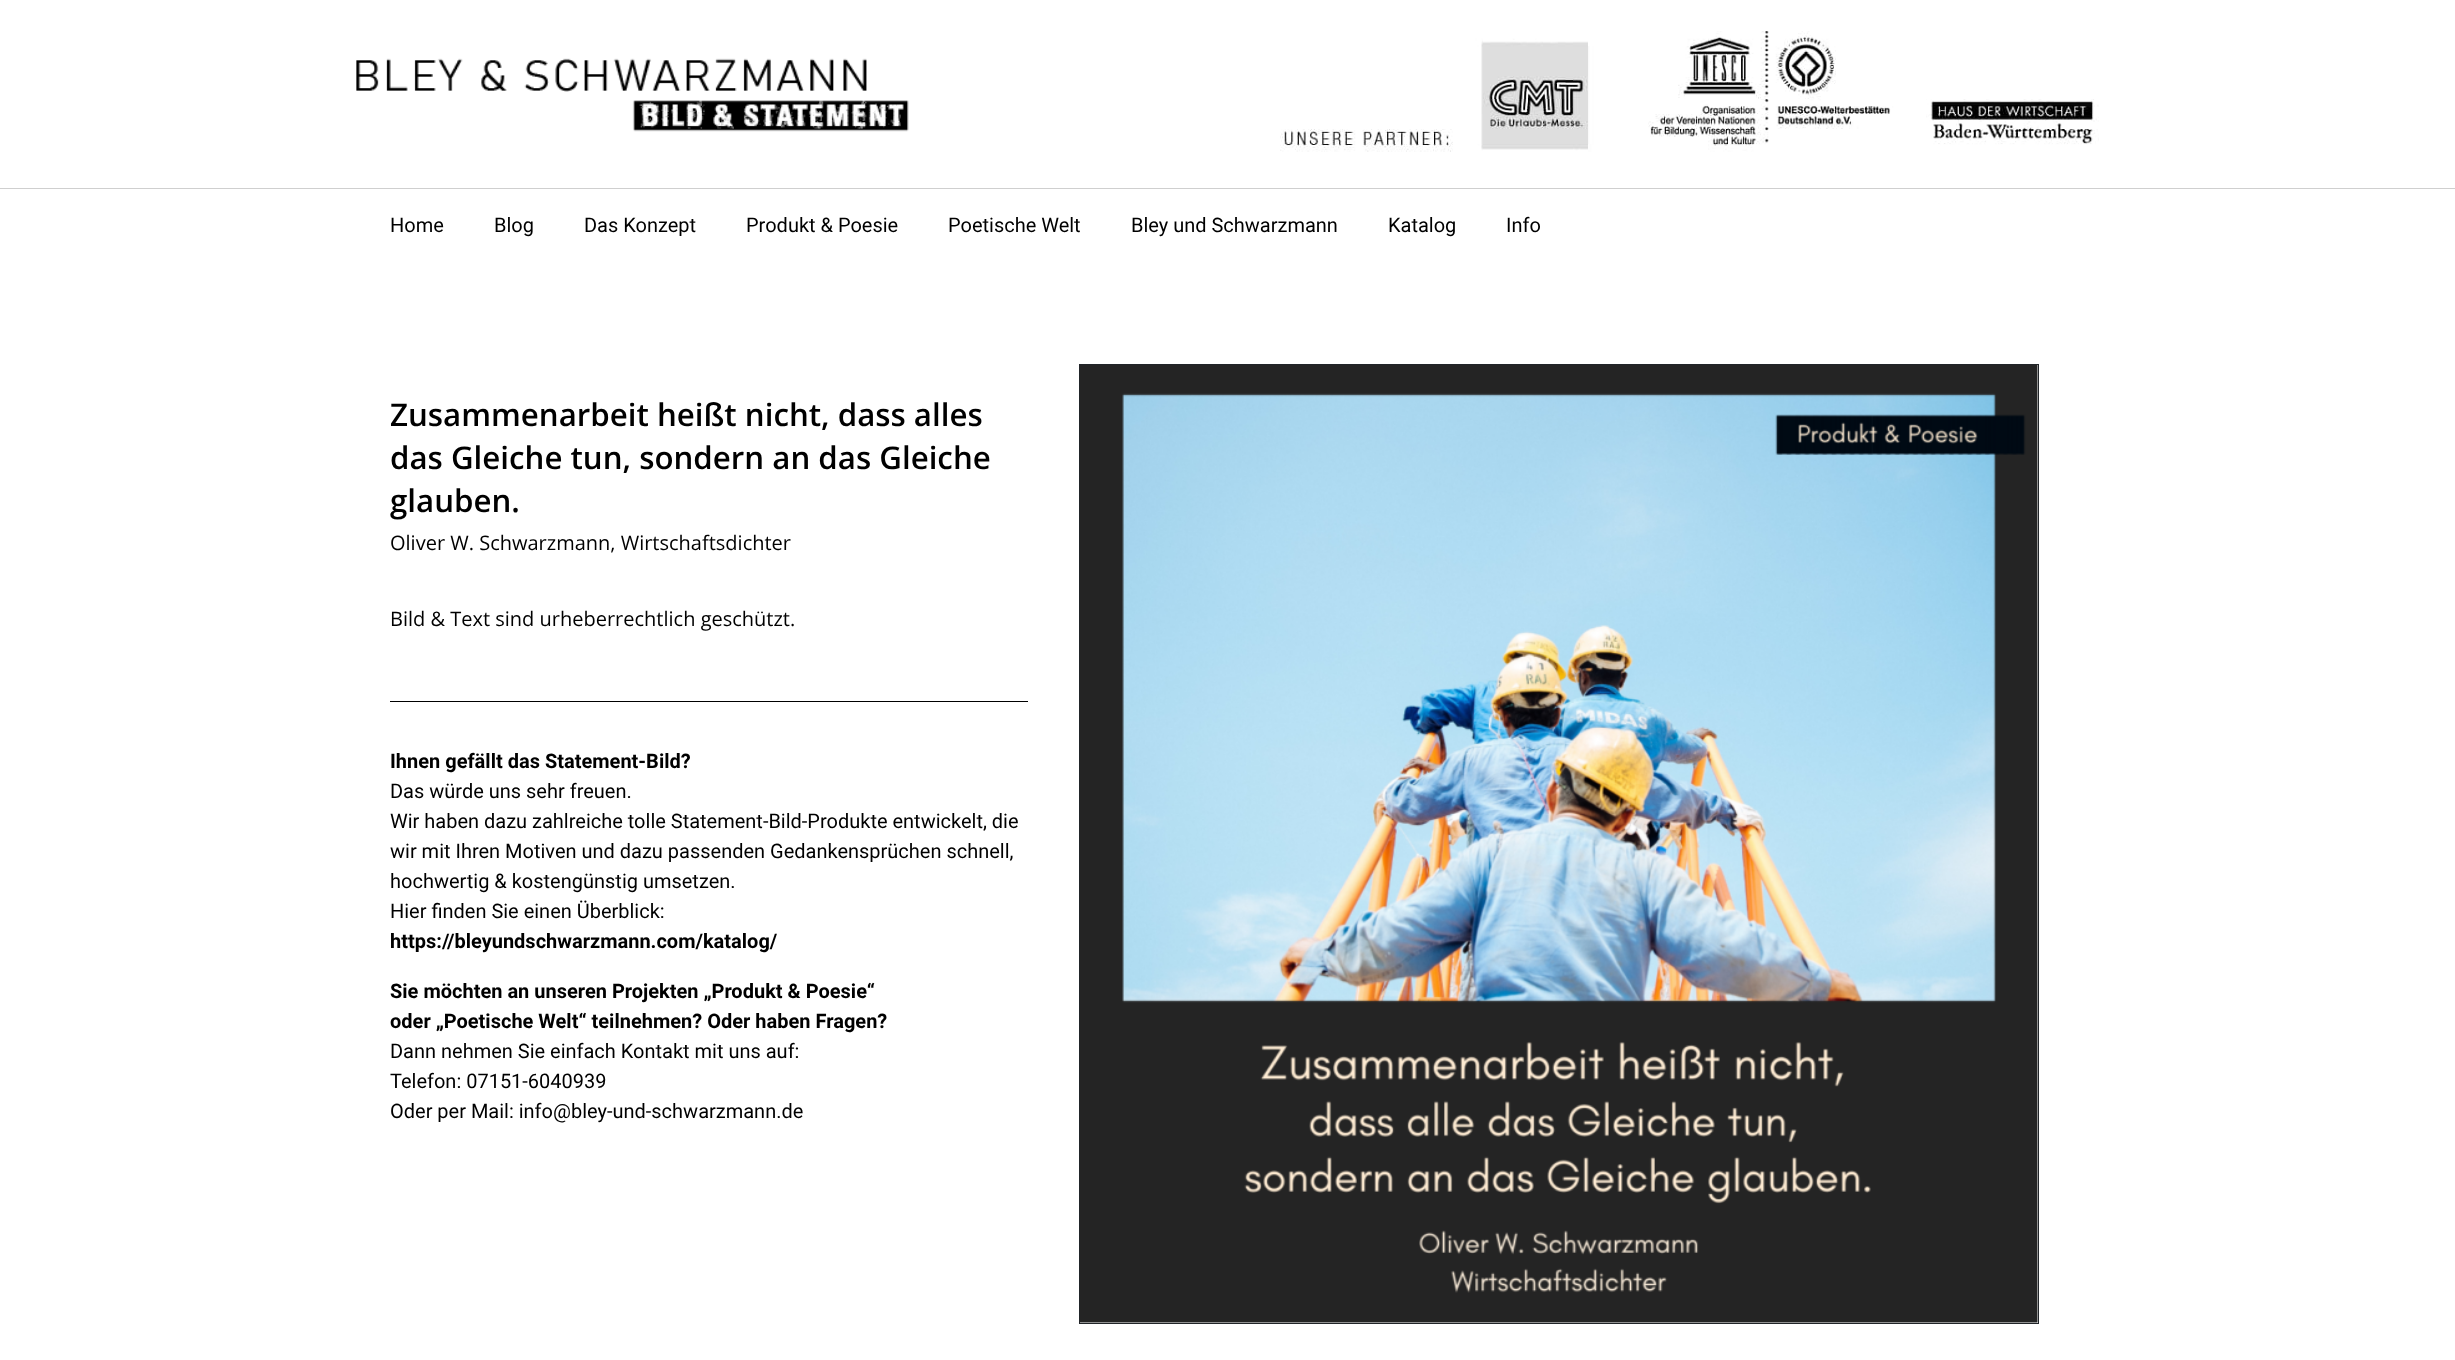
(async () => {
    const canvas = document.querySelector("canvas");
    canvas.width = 2455;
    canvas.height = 1360;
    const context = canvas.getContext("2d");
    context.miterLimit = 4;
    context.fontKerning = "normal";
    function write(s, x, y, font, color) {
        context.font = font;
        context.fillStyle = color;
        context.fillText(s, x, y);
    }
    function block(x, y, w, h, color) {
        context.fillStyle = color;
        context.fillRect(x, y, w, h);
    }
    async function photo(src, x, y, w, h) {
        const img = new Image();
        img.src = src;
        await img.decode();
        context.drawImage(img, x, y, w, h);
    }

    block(0, 0, 2455, 1360, "rgb(255, 255, 255)");
    block(0, 188, 2455, 1, "rgb(207, 207, 207)");
    await photo("media/1.png", 356, 58, 553, 74);
    await photo("media/2.png", 1280, 31, 819, 121);
    write("Home", 390, 232, "20px Roboto", "rgb(0, 0, 0)");
    write("Blog", 494, 232, "20px Roboto", "rgb(0, 0, 0)");
    write("Das Konzept", 584, 232, "20px Roboto", "rgb(0, 0, 0)");
    write("Produkt & Poesie", 746, 232, "20px Roboto", "rgb(0, 0, 0)");
    write("Poetische Welt", 948, 232, "20px Roboto", "rgb(0, 0, 0)");
    write("Bley und Schwarzmann", 1131, 232, "20px Roboto", "rgb(0, 0, 0)");
    write("Katalog", 1388, 232, "20px Roboto", "rgb(0, 0, 0)");
    write("Info", 1506, 232, "20px Roboto", "rgb(0, 0, 0)");
    write("Zusammenarbeit heißt nicht, dass alles", 390, 426, "600 31.25px Open Sans", "rgb(0, 0, 0)");
    write("das Gleiche tun, sondern an das Gleiche", 390, 469, "600 31.25px Open Sans", "rgb(0, 0, 0)");
    write("glauben.", 390, 512, "600 31.25px Open Sans", "rgb(0, 0, 0)");
    write("Oliver W. Schwarzmann, Wirtschaftsdichter", 390, 550, "20px Open Sans", "rgb(0, 0, 0)");
    write("Bild & Text sind urheberrechtlich geschützt.", 390, 626, "20px Open Sans", "rgb(0, 0, 0)");
    block(390, 701, 638, 1, "rgb(0, 0, 0)");
    write("Ihnen gefällt das Statement-Bild?", 390, 768, "bold 20px Roboto", "rgb(0, 0, 0)");
    write("Das würde uns sehr freuen.", 390, 798, "20px Roboto", "rgb(0, 0, 0)");
    write("Wir haben dazu zahlreiche tolle Statement-Bild-Produkte entwickelt, die", 390, 828, "20px Roboto", "rgb(0, 0, 0)");
    write("wir mit Ihren Motiven und dazu passenden Gedankensprüchen schnell,", 390, 858, "20px Roboto", "rgb(0, 0, 0)");
    write("hochwertig & kostengünstig umsetzen.", 390, 888, "20px Roboto", "rgb(0, 0, 0)");
    write("Hier finden Sie einen Überblick:", 390, 918, "20px Roboto", "rgb(0, 0, 0)");
    write("https://bleyundschwarzmann.com/katalog/", 390, 948, "bold 20px Roboto", "rgb(0, 0, 0)");
    write("Sie möchten an unseren Projekten „Produkt & Poesie“", 390, 998, "bold 20px Roboto", "rgb(0, 0, 0)");
    write("oder „Poetische Welt“ teilnehmen? Oder haben Fragen?", 390, 1028, "bold 20px Roboto", "rgb(0, 0, 0)");
    write("Dann nehmen Sie einfach Kontakt mit uns auf:", 390, 1058, "20px Roboto", "rgb(0, 0, 0)");
    write("Telefon: 07151-6040939", 390, 1088, "20px Roboto", "rgb(0, 0, 0)");
    write("Oder per Mail: info@bley-und-schwarzmann.de", 390, 1118, "20px Roboto", "rgb(0, 0, 0)");
    context.strokeStyle = "rgb(33, 37, 41)";
    context.strokeRect(1079.5, 364.5, 959, 959);
    await photo("media/3.png", 1080, 365, 958, 958);
})();
